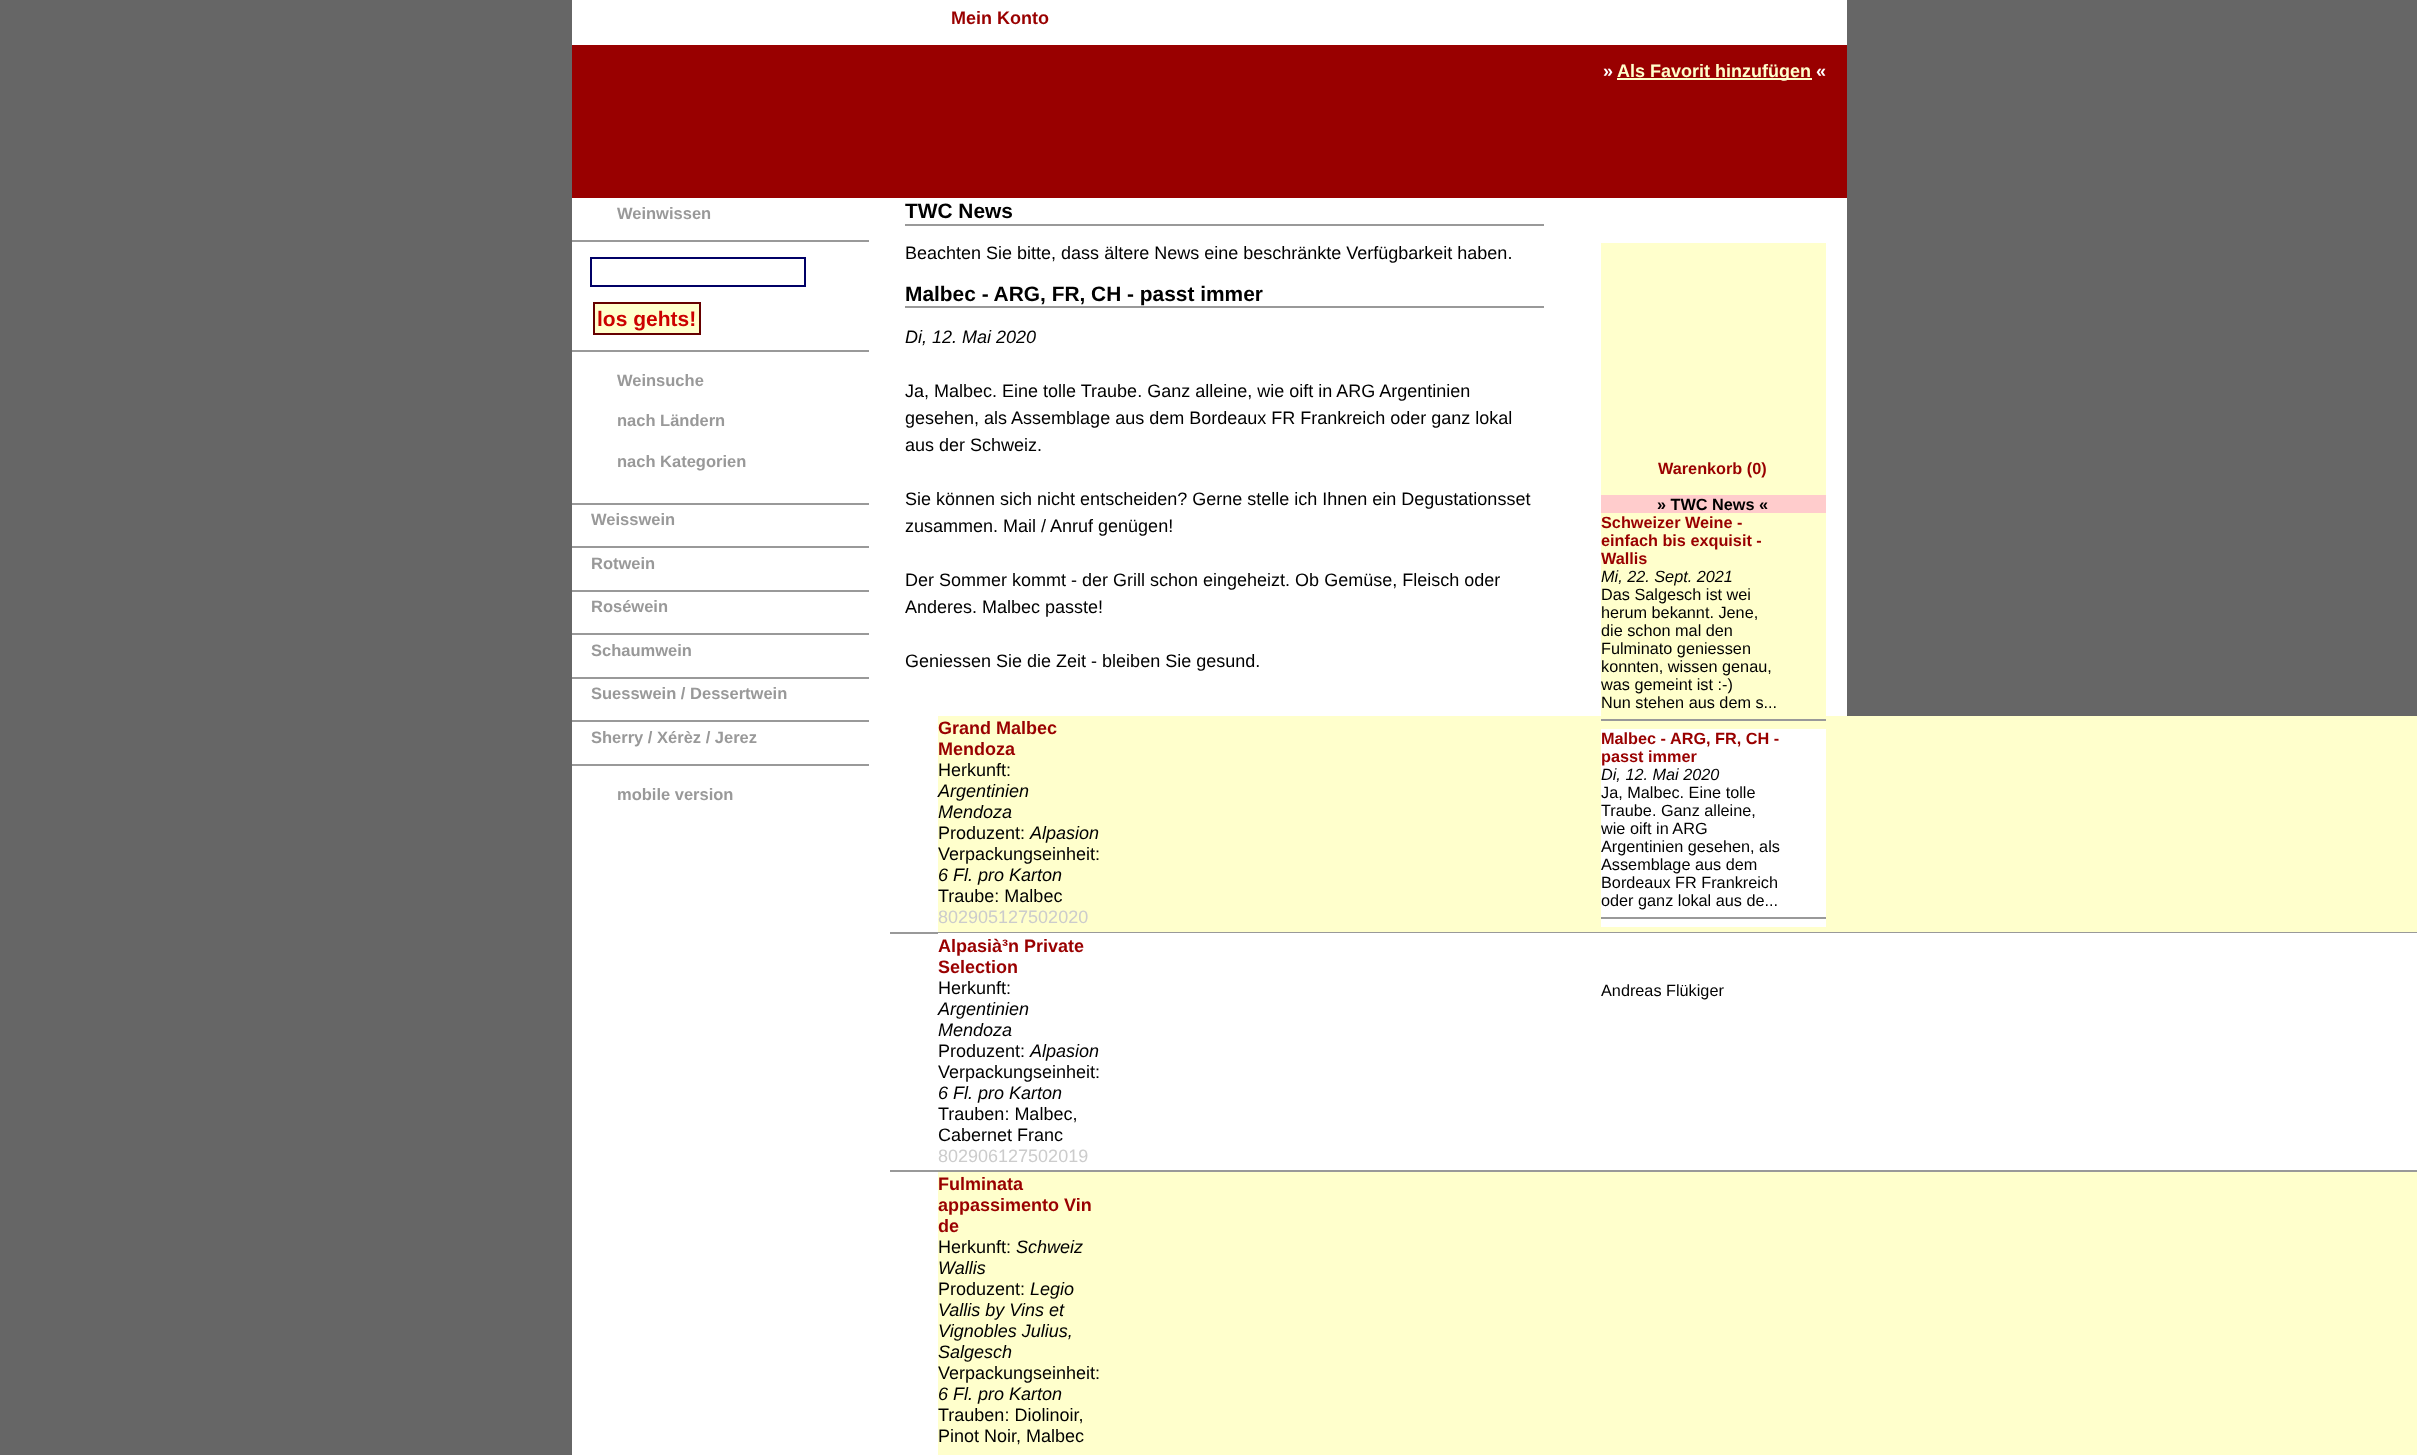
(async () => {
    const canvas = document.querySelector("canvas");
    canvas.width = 2417;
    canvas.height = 1455;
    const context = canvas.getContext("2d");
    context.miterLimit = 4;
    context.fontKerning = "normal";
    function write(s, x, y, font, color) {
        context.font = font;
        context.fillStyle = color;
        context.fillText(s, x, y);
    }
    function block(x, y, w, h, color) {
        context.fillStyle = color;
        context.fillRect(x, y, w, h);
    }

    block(0, 0, 2417, 1455, "rgb(102, 102, 102)");
    block(572, 0, 1275, 1455, "rgb(255, 255, 255)");
    write("Mein Konto", 951, 24, "bold 18px Liberation Sans", "rgb(153, 0, 0)");
    block(572, 45, 1275, 153, "rgb(153, 0, 0)");
    write("»", 1603, 77, "bold 18px Liberation Sans", "rgb(255, 255, 255)");
    block(1617, 78, 195, 2, "rgb(255, 255, 204)");
    write("Als Favorit hinzufügen", 1617, 77, "bold 18px Liberation Sans", "rgb(255, 255, 204)");
    write("«", 1816, 77, "bold 18px Liberation Sans", "rgb(255, 255, 255)");
    write("Weinwissen", 617, 219, "bold 16.5px Liberation Sans", "rgb(153, 153, 153)");
    block(572, 240, 297, 2, "rgb(153, 153, 153)");
    context.strokeStyle = "rgb(0, 0, 102)";
    context.lineWidth = 2;
    context.strokeRect(591, 258, 214, 28);
    context.fillStyle = "rgb(255, 255, 204)";
    context.beginPath();
    context.rect(594, 303, 106, 31);
    context.fill();
    context.strokeStyle = "rgb(102, 0, 0)";
    context.stroke();
    write("los gehts!", 597, 326, "bold 21px Liberation Sans", "rgb(204, 0, 0)");
    block(572, 350, 297, 2, "rgb(153, 153, 153)");
    write("Weinsuche", 617, 386, "bold 16.5px Liberation Sans", "rgb(153, 153, 153)");
    write("nach Ländern", 617, 426, "bold 16.5px Liberation Sans", "rgb(153, 153, 153)");
    write("nach Kategorien", 617, 467, "bold 16.5px Liberation Sans", "rgb(153, 153, 153)");
    block(572, 503, 297, 2, "rgb(153, 153, 153)");
    write("Weisswein", 591, 525, "bold 16.5px Liberation Sans", "rgb(153, 153, 153)");
    block(572, 546, 297, 2, "rgb(153, 153, 153)");
    write("Rotwein", 591, 569, "bold 16.5px Liberation Sans", "rgb(153, 153, 153)");
    block(572, 590, 297, 2, "rgb(153, 153, 153)");
    write("Roséwein", 591, 612, "bold 16.5px Liberation Sans", "rgb(153, 153, 153)");
    block(572, 633, 297, 2, "rgb(153, 153, 153)");
    write("Schaumwein", 591, 656, "bold 16.5px Liberation Sans", "rgb(153, 153, 153)");
    block(572, 677, 297, 2, "rgb(153, 153, 153)");
    write("Suesswein / Dessertwein", 591, 699, "bold 16.5px Liberation Sans", "rgb(153, 153, 153)");
    block(572, 720, 297, 2, "rgb(153, 153, 153)");
    write("Sherry / Xérèz / Jerez", 591, 743, "bold 16.5px Liberation Sans", "rgb(153, 153, 153)");
    block(572, 764, 297, 2, "rgb(153, 153, 153)");
    write("mobile version", 617, 800, "bold 16.5px Liberation Sans", "rgb(153, 153, 153)");
    block(905, 224, 639, 2, "rgb(153, 153, 153)");
    write("TWC News", 905, 218, "bold 20.9px Liberation Sans", "rgb(0, 0, 0)");
    write("Beachten Sie bitte, dass ältere News eine beschränkte Verfügbarkeit haben.", 905, 259, "18px Liberation Sans", "rgb(0, 0, 0)");
    block(905, 306, 639, 2, "rgb(153, 153, 153)");
    write("Malbec - ARG, FR, CH - passt immer", 905, 301, "bold 20.9px Liberation Sans", "rgb(0, 0, 0)");
    write("Di, 12. Mai 2020", 905, 343, "italic 18px Liberation Sans", "rgb(0, 0, 0)");
    write("Ja, Malbec. Eine tolle Traube. Ganz alleine, wie oift in ARG Argentinien", 905, 397, "18px Liberation Sans", "rgb(0, 0, 0)");
    write("gesehen, als Assemblage aus dem Bordeaux FR Frankreich oder ganz lokal", 905, 424, "18px Liberation Sans", "rgb(0, 0, 0)");
    write("aus der Schweiz.", 905, 451, "18px Liberation Sans", "rgb(0, 0, 0)");
    write("Sie können sich nicht entscheiden? Gerne stelle ich Ihnen ein Degustationsset", 905, 505, "18px Liberation Sans", "rgb(0, 0, 0)");
    write("zusammen. Mail / Anruf genügen!", 905, 532, "18px Liberation Sans", "rgb(0, 0, 0)");
    write("Der Sommer kommt - der Grill schon eingeheizt. Ob Gemüse, Fleisch oder", 905, 586, "18px Liberation Sans", "rgb(0, 0, 0)");
    write("Anderes. Malbec passte!", 905, 613, "18px Liberation Sans", "rgb(0, 0, 0)");
    write("Geniessen Sie die Zeit - bleiben Sie gesund.", 905, 667, "18px Liberation Sans", "rgb(0, 0, 0)");
    block(938, 716, 1479, 216, "rgb(255, 255, 204)");
    block(938, 932, 1479, 1, "rgb(153, 153, 153)");
    write("Grand Malbec", 938, 734, "bold 18px Liberation Sans", "rgb(153, 0, 0)");
    write("Mendoza", 938, 755, "bold 18px Liberation Sans", "rgb(153, 0, 0)");
    write("Herkunft:", 938, 776, "18px Liberation Sans", "rgb(0, 0, 0)");
    write("Argentinien", 938, 797, "italic 18px Liberation Sans", "rgb(0, 0, 0)");
    write("Mendoza", 938, 818, "italic 18px Liberation Sans", "rgb(0, 0, 0)");
    write("Produzent:", 938, 839, "18px Liberation Sans", "rgb(0, 0, 0)");
    write("Alpasion", 1030, 839, "italic 18px Liberation Sans", "rgb(0, 0, 0)");
    write("Verpackungseinheit:", 938, 860, "18px Liberation Sans", "rgb(0, 0, 0)");
    write("6 Fl. pro Karton", 938, 881, "italic 18px Liberation Sans", "rgb(0, 0, 0)");
    write("Traube: Malbec", 938, 902, "18px Liberation Sans", "rgb(0, 0, 0)");
    write("802905127502020", 938, 923, "18px Liberation Sans", "rgb(204, 204, 204)");
    block(890, 932, 48, 2, "rgb(153, 153, 153)");
    write("Alpasià³n Private", 938, 952, "bold 18px Liberation Sans", "rgb(153, 0, 0)");
    write("Selection", 938, 973, "bold 18px Liberation Sans", "rgb(153, 0, 0)");
    write("Herkunft:", 938, 994, "18px Liberation Sans", "rgb(0, 0, 0)");
    write("Argentinien", 938, 1015, "italic 18px Liberation Sans", "rgb(0, 0, 0)");
    write("Mendoza", 938, 1036, "italic 18px Liberation Sans", "rgb(0, 0, 0)");
    write("Produzent:", 938, 1057, "18px Liberation Sans", "rgb(0, 0, 0)");
    write("Alpasion", 1030, 1057, "italic 18px Liberation Sans", "rgb(0, 0, 0)");
    write("Verpackungseinheit:", 938, 1078, "18px Liberation Sans", "rgb(0, 0, 0)");
    write("6 Fl. pro Karton", 938, 1099, "italic 18px Liberation Sans", "rgb(0, 0, 0)");
    write("Trauben: Malbec,", 938, 1120, "18px Liberation Sans", "rgb(0, 0, 0)");
    write("Cabernet Franc", 938, 1141, "18px Liberation Sans", "rgb(0, 0, 0)");
    write("802906127502019", 938, 1162, "18px Liberation Sans", "rgb(204, 204, 204)");
    block(1847, 933, 570, 237, "rgb(255, 255, 255)");
    block(890, 1170, 1527, 2, "rgb(153, 153, 153)");
    block(938, 1172, 1479, 283, "rgb(255, 255, 204)");
    write("Fulminata", 938, 1190, "bold 18px Liberation Sans", "rgb(153, 0, 0)");
    write("appassimento Vin", 938, 1211, "bold 18px Liberation Sans", "rgb(153, 0, 0)");
    write("de", 938, 1232, "bold 18px Liberation Sans", "rgb(153, 0, 0)");
    write("Herkunft:", 938, 1253, "18px Liberation Sans", "rgb(0, 0, 0)");
    write("Schweiz", 1016, 1253, "italic 18px Liberation Sans", "rgb(0, 0, 0)");
    write("Wallis", 938, 1274, "italic 18px Liberation Sans", "rgb(0, 0, 0)");
    write("Produzent:", 938, 1295, "18px Liberation Sans", "rgb(0, 0, 0)");
    write("Legio", 1030, 1295, "italic 18px Liberation Sans", "rgb(0, 0, 0)");
    write("Vallis by Vins et", 938, 1316, "italic 18px Liberation Sans", "rgb(0, 0, 0)");
    write("Vignobles Julius,", 938, 1337, "italic 18px Liberation Sans", "rgb(0, 0, 0)");
    write("Salgesch", 938, 1358, "italic 18px Liberation Sans", "rgb(0, 0, 0)");
    write("Verpackungseinheit:", 938, 1379, "18px Liberation Sans", "rgb(0, 0, 0)");
    write("6 Fl. pro Karton", 938, 1400, "italic 18px Liberation Sans", "rgb(0, 0, 0)");
    write("Trauben: Diolinoir,", 938, 1421, "18px Liberation Sans", "rgb(0, 0, 0)");
    write("Pinot Noir, Malbec", 938, 1442, "18px Liberation Sans", "rgb(0, 0, 0)");
    block(1601, 243, 225, 252, "rgb(255, 255, 204)");
    write("Warenkorb (0)", 1658, 474, "bold 16.25px Liberation Sans", "rgb(153, 0, 0)");
    block(1601, 495, 225, 18, "rgb(255, 204, 204)");
    write("» TWC News «", 1657, 510, "bold 16.25px Liberation Sans", "rgb(0, 0, 0)");
    block(1601, 513, 225, 203, "rgb(255, 255, 204)");
    write("Schweizer Weine -", 1601, 528, "bold 16.25px Liberation Sans", "rgb(153, 0, 0)");
    write("einfach bis exquisit -", 1601, 546, "bold 16.25px Liberation Sans", "rgb(153, 0, 0)");
    write("Wallis", 1601, 564, "bold 16.25px Liberation Sans", "rgb(153, 0, 0)");
    write("Mi, 22. Sept. 2021", 1601, 582, "italic 16.25px Liberation Sans", "rgb(0, 0, 0)");
    write("Das Salgesch ist wei", 1601, 600, "16.25px Liberation Sans", "rgb(0, 0, 0)");
    write("herum bekannt. Jene,", 1601, 618, "16.25px Liberation Sans", "rgb(0, 0, 0)");
    write("die schon mal den", 1601, 636, "16.25px Liberation Sans", "rgb(0, 0, 0)");
    write("Fulminato geniessen", 1601, 654, "16.25px Liberation Sans", "rgb(0, 0, 0)");
    write("konnten, wissen genau,", 1601, 672, "16.25px Liberation Sans", "rgb(0, 0, 0)");
    write("was gemeint ist :-)", 1601, 690, "16.25px Liberation Sans", "rgb(0, 0, 0)");
    write("Nun stehen aus dem s...", 1601, 708, "16.25px Liberation Sans", "rgb(0, 0, 0)");
    block(1601, 719, 225, 2, "rgb(153, 153, 153)");
    block(1601, 729, 225, 198, "rgb(255, 255, 255)");
    write("Malbec - ARG, FR, CH -", 1601, 744, "bold 16.25px Liberation Sans", "rgb(153, 0, 0)");
    write("passt immer", 1601, 762, "bold 16.25px Liberation Sans", "rgb(153, 0, 0)");
    write("Di, 12. Mai 2020", 1601, 780, "italic 16.25px Liberation Sans", "rgb(0, 0, 0)");
    write("Ja, Malbec. Eine tolle", 1601, 798, "16.25px Liberation Sans", "rgb(0, 0, 0)");
    write("Traube. Ganz alleine,", 1601, 816, "16.25px Liberation Sans", "rgb(0, 0, 0)");
    write("wie oift in ARG", 1601, 834, "16.25px Liberation Sans", "rgb(0, 0, 0)");
    write("Argentinien gesehen, als", 1601, 852, "16.25px Liberation Sans", "rgb(0, 0, 0)");
    write("Assemblage aus dem", 1601, 870, "16.25px Liberation Sans", "rgb(0, 0, 0)");
    write("Bordeaux FR Frankreich", 1601, 888, "16.25px Liberation Sans", "rgb(0, 0, 0)");
    write("oder ganz lokal aus de...", 1601, 906, "16.25px Liberation Sans", "rgb(0, 0, 0)");
    block(1601, 917, 225, 2, "rgb(153, 153, 153)");
    write("Andreas Flükiger", 1601, 996, "16.25px Liberation Sans", "rgb(0, 0, 0)");
})();
